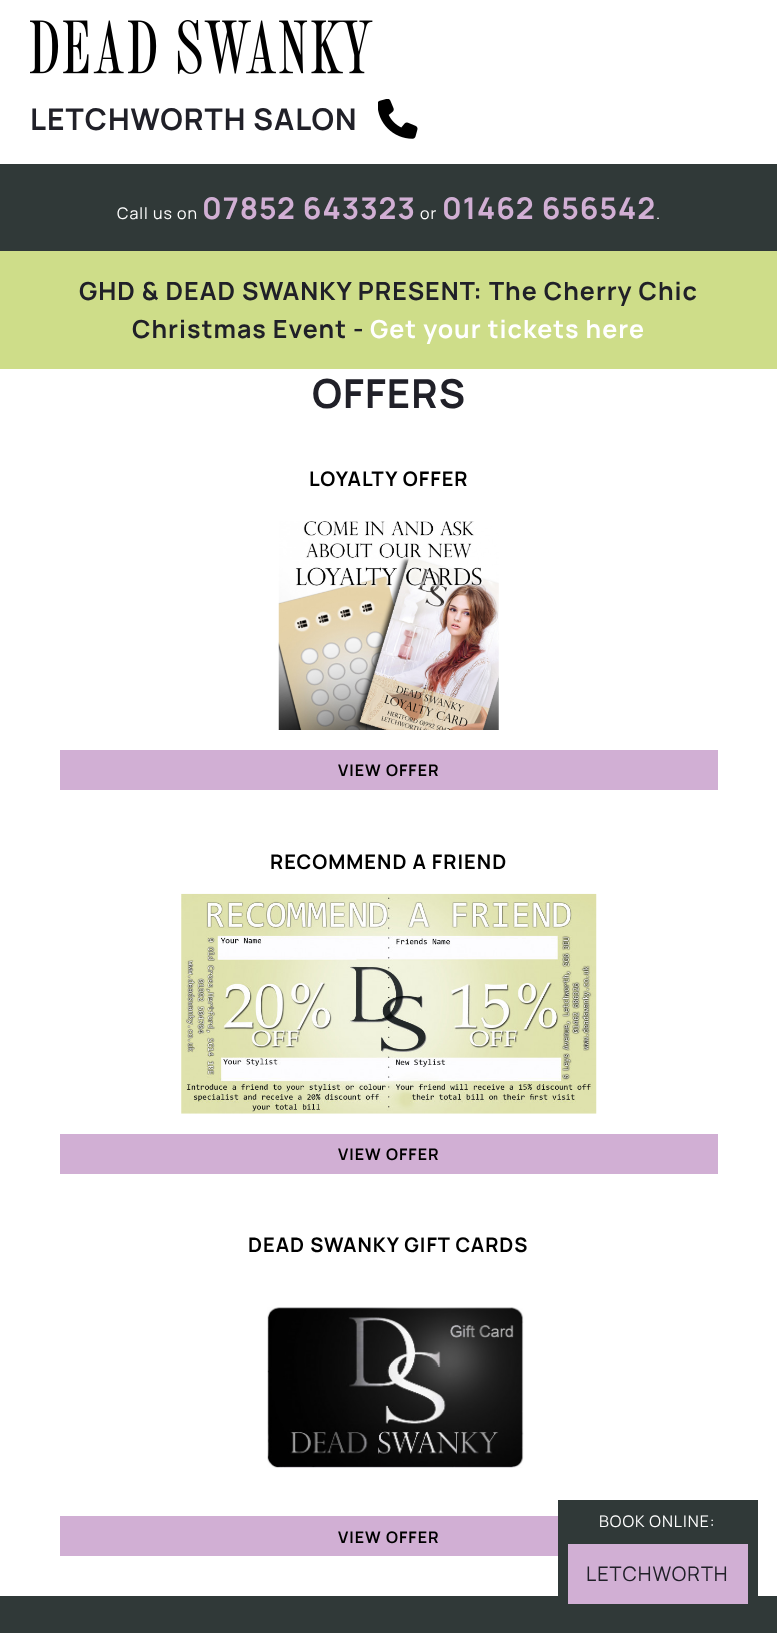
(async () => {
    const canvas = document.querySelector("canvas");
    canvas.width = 777;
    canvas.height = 1633;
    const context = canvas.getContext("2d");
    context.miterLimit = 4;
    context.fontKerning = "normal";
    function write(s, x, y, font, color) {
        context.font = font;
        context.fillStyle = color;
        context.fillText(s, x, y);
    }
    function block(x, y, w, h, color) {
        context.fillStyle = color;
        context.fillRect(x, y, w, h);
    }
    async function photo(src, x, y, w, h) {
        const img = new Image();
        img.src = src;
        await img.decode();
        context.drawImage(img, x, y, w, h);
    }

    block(0, 0, 777, 1633, "rgb(48, 57, 56)");
    block(0, 0, 777, 164, "rgb(255, 255, 255)");
    await photo("media/1.png", 30, 20, 343, 54);
    context.letterSpacing = "1px";
    write("LETCHWORTH SALON", 30, 130, "bold 30px Manrope", "rgb(32, 32, 40)");
    await photo("media/2.png", 378, 99, 40, 40);
    write("Call us on", 117, 219, "16px Manrope", "rgb(255, 255, 255)");
    write("07852 643323", 202, 219, "bold 30px Manrope", "rgb(209, 175, 212)");
    write("or", 420, 219, "16px Manrope", "rgb(255, 255, 255)");
    write("01462 656542", 442, 219, "bold 30px Manrope", "rgb(209, 175, 212)");
    write(".", 656, 219, "16px Manrope", "rgb(255, 255, 255)");
    block(0, 251, 777, 118, "rgb(206, 221, 137)");
    write("GHD & DEAD SWANKY PRESENT: The Cherry Chic", 79, 300, "bold 25px Manrope", "rgb(32, 32, 40)");
    write("Christmas Event -", 132, 338, "bold 25px Manrope", "rgb(32, 32, 40)");
    write("Get your tickets here", 370, 338, "bold 25px Manrope", "rgb(255, 255, 255)");
    block(0, 369, 777, 1227, "rgb(255, 255, 255)");
    write("OFFERS", 312, 408, "bold 40px Manrope", "rgb(32, 32, 40)");
    write("LOYALTY OFFER", 309, 486, "bold 20px Manrope", "rgb(0, 0, 0)");
    await photo("media/3.png", 278, 521, 221, 209);
    block(60, 750, 658, 40, "rgb(209, 175, 212)");
    write("VIEW OFFER", 338, 776, "bold 16px Manrope", "rgb(0, 0, 0)");
    write("RECOMMEND A FRIEND", 270, 869, "bold 20px Manrope", "rgb(0, 0, 0)");
    await photo("media/4.png", 181, 893, 416, 221);
    block(60, 1134, 658, 40, "rgb(209, 175, 212)");
    write("VIEW OFFER", 338, 1160, "bold 16px Manrope", "rgb(0, 0, 0)");
    write("DEAD SWANKY GIFT CARDS", 248, 1252, "bold 20px Manrope", "rgb(0, 0, 0)");
    await photo("media/5.png", 267, 1307, 257, 161);
    block(60, 1516, 498, 40, "rgb(209, 175, 212)");
    write("VIEW OFFER", 338, 1543, "bold 16px Manrope", "rgb(0, 0, 0)");
    block(558, 1500, 200, 96, "rgb(48, 57, 56)");
    write("BOOK ONLINE:", 599, 1527, "16px Manrope", "rgb(255, 255, 255)");
    block(568, 1544, 180, 60, "rgb(209, 175, 212)");
    write("LETCHWORTH", 586, 1581, "20px Manrope", "rgb(32, 32, 40)");
})();
